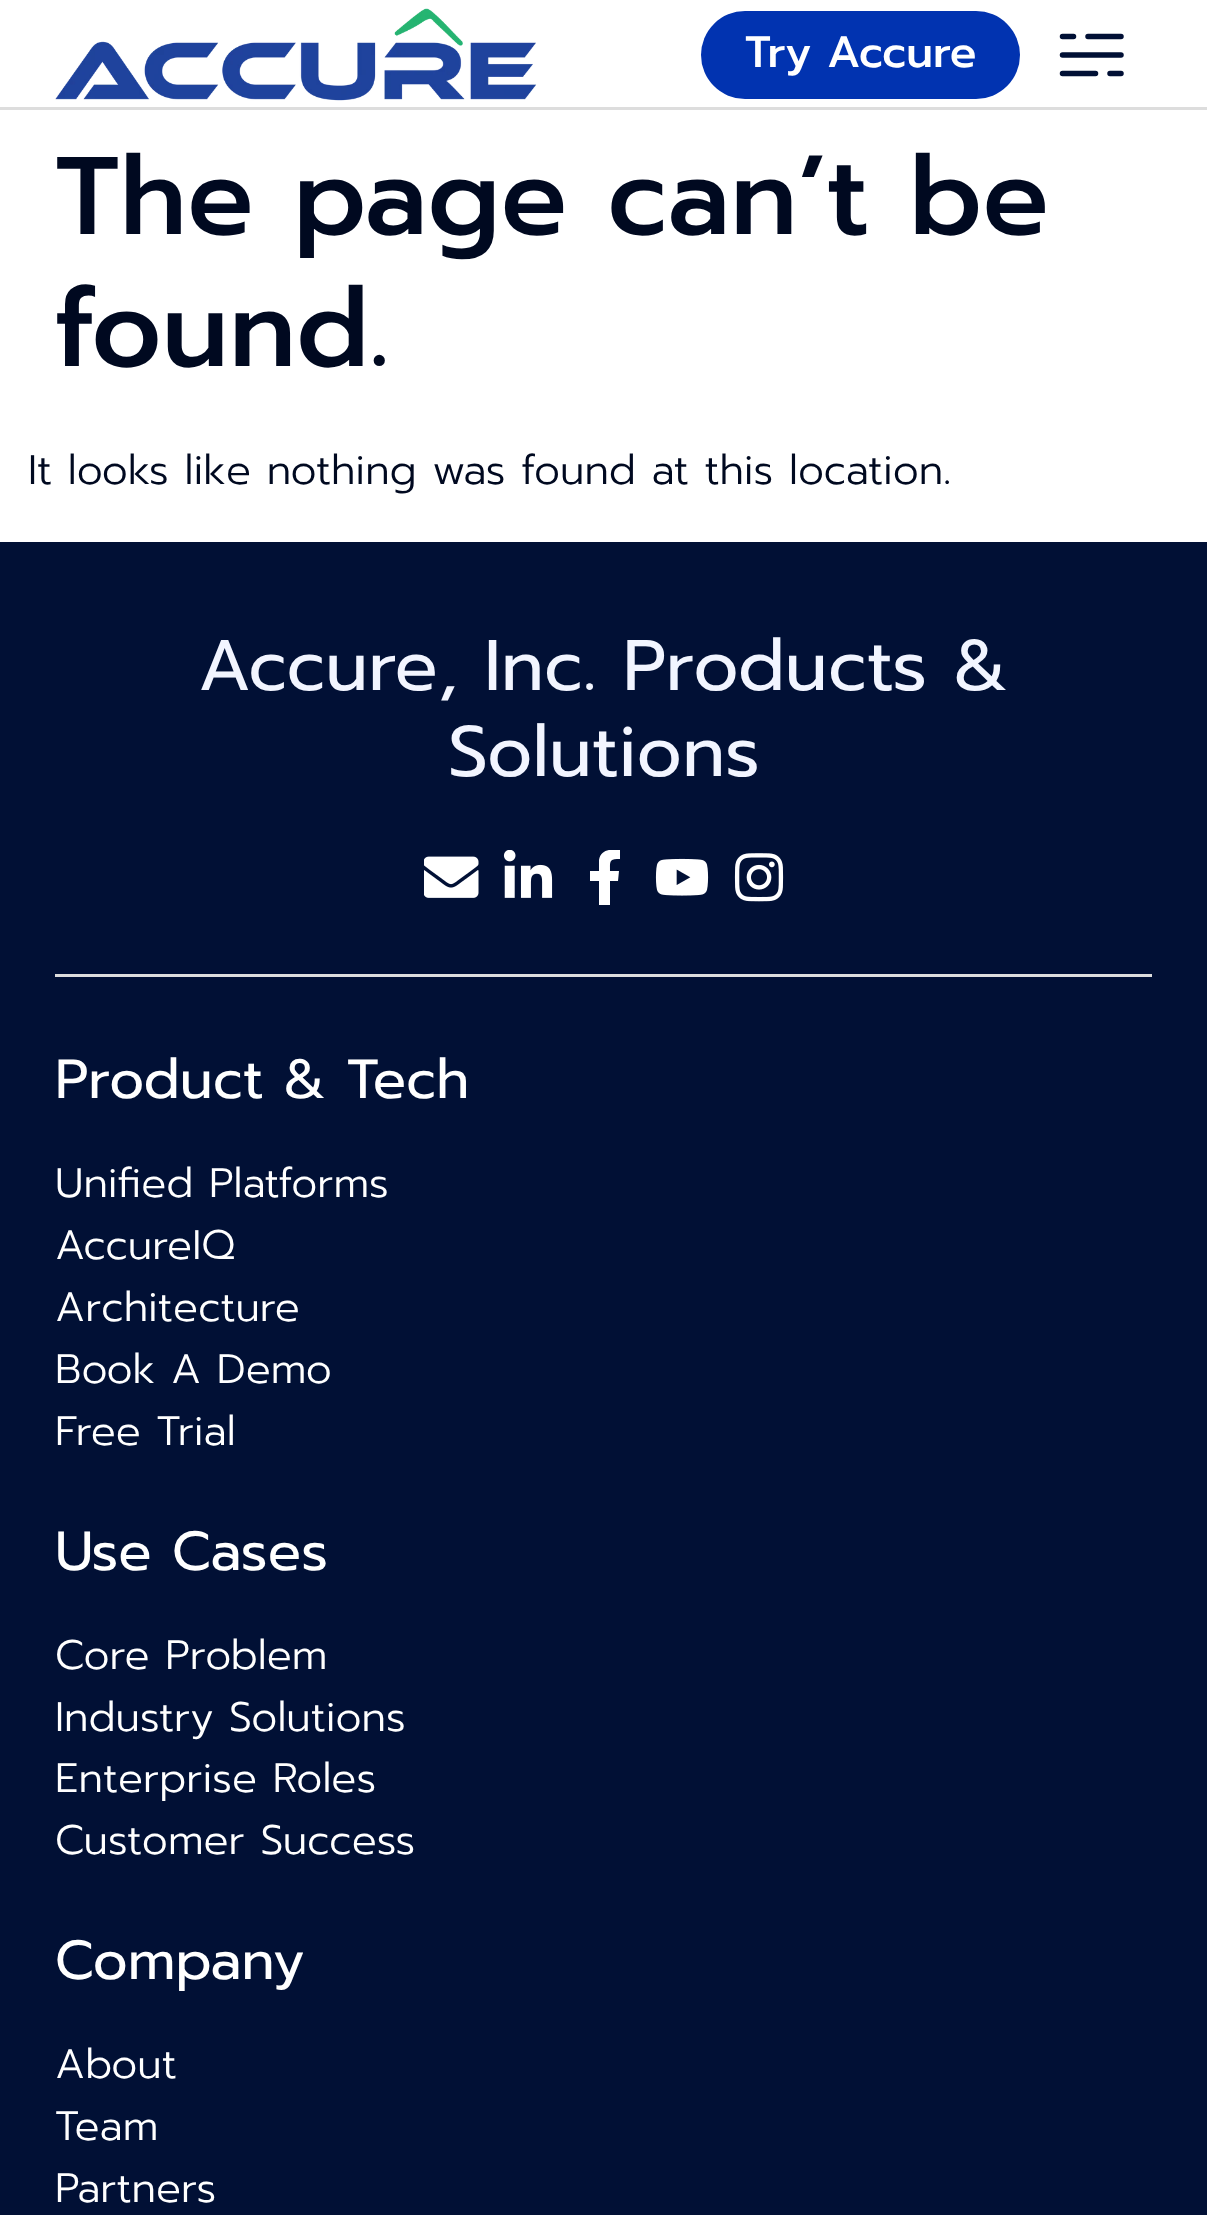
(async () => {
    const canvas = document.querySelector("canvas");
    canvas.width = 1207;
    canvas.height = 2215;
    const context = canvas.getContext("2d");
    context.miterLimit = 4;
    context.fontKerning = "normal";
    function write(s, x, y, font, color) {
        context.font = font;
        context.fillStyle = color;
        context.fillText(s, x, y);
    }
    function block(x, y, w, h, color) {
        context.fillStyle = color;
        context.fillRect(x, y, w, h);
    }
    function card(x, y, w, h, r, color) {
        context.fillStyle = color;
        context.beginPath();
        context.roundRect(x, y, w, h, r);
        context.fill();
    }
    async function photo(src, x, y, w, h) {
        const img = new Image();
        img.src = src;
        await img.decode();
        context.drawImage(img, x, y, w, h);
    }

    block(0, 0, 1207, 2215, "rgb(255, 255, 255)");
    block(0, 107, 1207, 3, "rgb(221, 221, 221)");
    await photo("media/1.png", 55, 8, 482, 93);
    card(701, 11, 319, 88, 44, "rgb(1, 51, 176)");
    write("Try Accure", 745, 67, "500 44px Prompt", "rgb(255, 255, 255)");
    context.beginPath();
    context.moveTo(1062.5, 36.5);
    context.lineTo(1073.5, 36.5);
    context.moveTo(1121, 36.5);
    context.lineTo(1088, 36.5);
    context.strokeStyle = "rgb(1, 16, 53)";
    context.lineWidth = 5.5;
    context.lineCap = "round";
    context.stroke();
    context.beginPath();
    context.moveTo(1121, 73.5);
    context.lineTo(1110, 73.5);
    context.moveTo(1062.5, 73.5);
    context.lineTo(1095.5, 73.5);
    context.stroke();
    context.beginPath();
    context.moveTo(1062.5, 55);
    context.lineTo(1121, 55);
    context.stroke();
    write("The page can’t be", 55, 234, "500 110px Prompt", "rgb(0, 9, 32)");
    write("found.", 55, 366, "500 110px Prompt", "rgb(0, 9, 32)");
    write("It looks like nothing was found at this location.", 28, 484, "300 41.25px Prompt", "rgb(0, 9, 32)");
    block(0, 542, 1207, 1673, "rgb(1, 16, 53)");
    write("Accure, Inc. Products &", 198, 690, "71.5px Prompt", "rgb(242, 245, 255)");
    write("Solutions", 448, 776, "71.5px Prompt", "rgb(242, 245, 255)");
    await photo("media/2.png", 424, 856, 55, 42);
    await photo("media/3.png", 503, 850, 50, 48);
    context.save();
    context.beginPath();
    context.rect(578, 850, 55, 55);
    context.clip();
    context.fillStyle = "rgb(255, 255, 255)";
    context.beginPath();
    context.moveTo(618, 881);
    context.lineTo(619, 871);
    context.lineTo(610, 871);
    context.bezierCurveTo(610, 861, 609, 859, 620, 859);
    context.lineTo(620, 850);
    context.bezierCurveTo(611, 849, 601, 849, 599, 860);
    context.lineTo(599, 871);
    context.lineTo(590, 871);
    context.lineTo(590, 881);
    context.lineTo(599, 881);
    context.lineTo(599, 905);
    context.lineTo(610, 905);
    context.lineTo(610, 881);
    context.closePath();
    context.fill();
    context.restore();
    await photo("media/4.png", 655, 858, 54, 38);
    await photo("media/5.png", 734, 853, 50, 49);
    block(55, 974, 1097, 3, "rgb(221, 221, 221)");
    write("Product & Tech", 55, 1098, "55px Prompt", "rgb(255, 255, 255)");
    write("Unified Platforms", 55, 1197, "300 41.25px Prompt", "rgb(255, 255, 255)");
    write("AccureIQ", 55, 1259, "300 41.25px Prompt", "rgb(255, 255, 255)");
    write("Architecture", 55, 1321, "300 41.25px Prompt", "rgb(255, 255, 255)");
    write("Book A Demo", 55, 1383, "300 41.25px Prompt", "rgb(255, 255, 255)");
    write("Free Trial", 55, 1445, "300 41.25px Prompt", "rgb(255, 255, 255)");
    write("Use Cases", 55, 1570, "55px Prompt", "rgb(255, 255, 255)");
    write("Core Problem", 55, 1669, "300 41.25px Prompt", "rgb(255, 255, 255)");
    write("Industry Solutions", 55, 1731, "300 41.25px Prompt", "rgb(255, 255, 255)");
    write("Enterprise Roles", 55, 1792, "300 41.25px Prompt", "rgb(255, 255, 255)");
    write("Customer Success", 55, 1854, "300 41.25px Prompt", "rgb(255, 255, 255)");
    write("Company", 55, 1979, "55px Prompt", "rgb(255, 255, 255)");
    write("About", 55, 2078, "300 41.25px Prompt", "rgb(255, 255, 255)");
    write("Team", 55, 2140, "300 41.25px Prompt", "rgb(255, 255, 255)");
    write("Partners", 55, 2202, "300 41.25px Prompt", "rgb(255, 255, 255)");
})();
